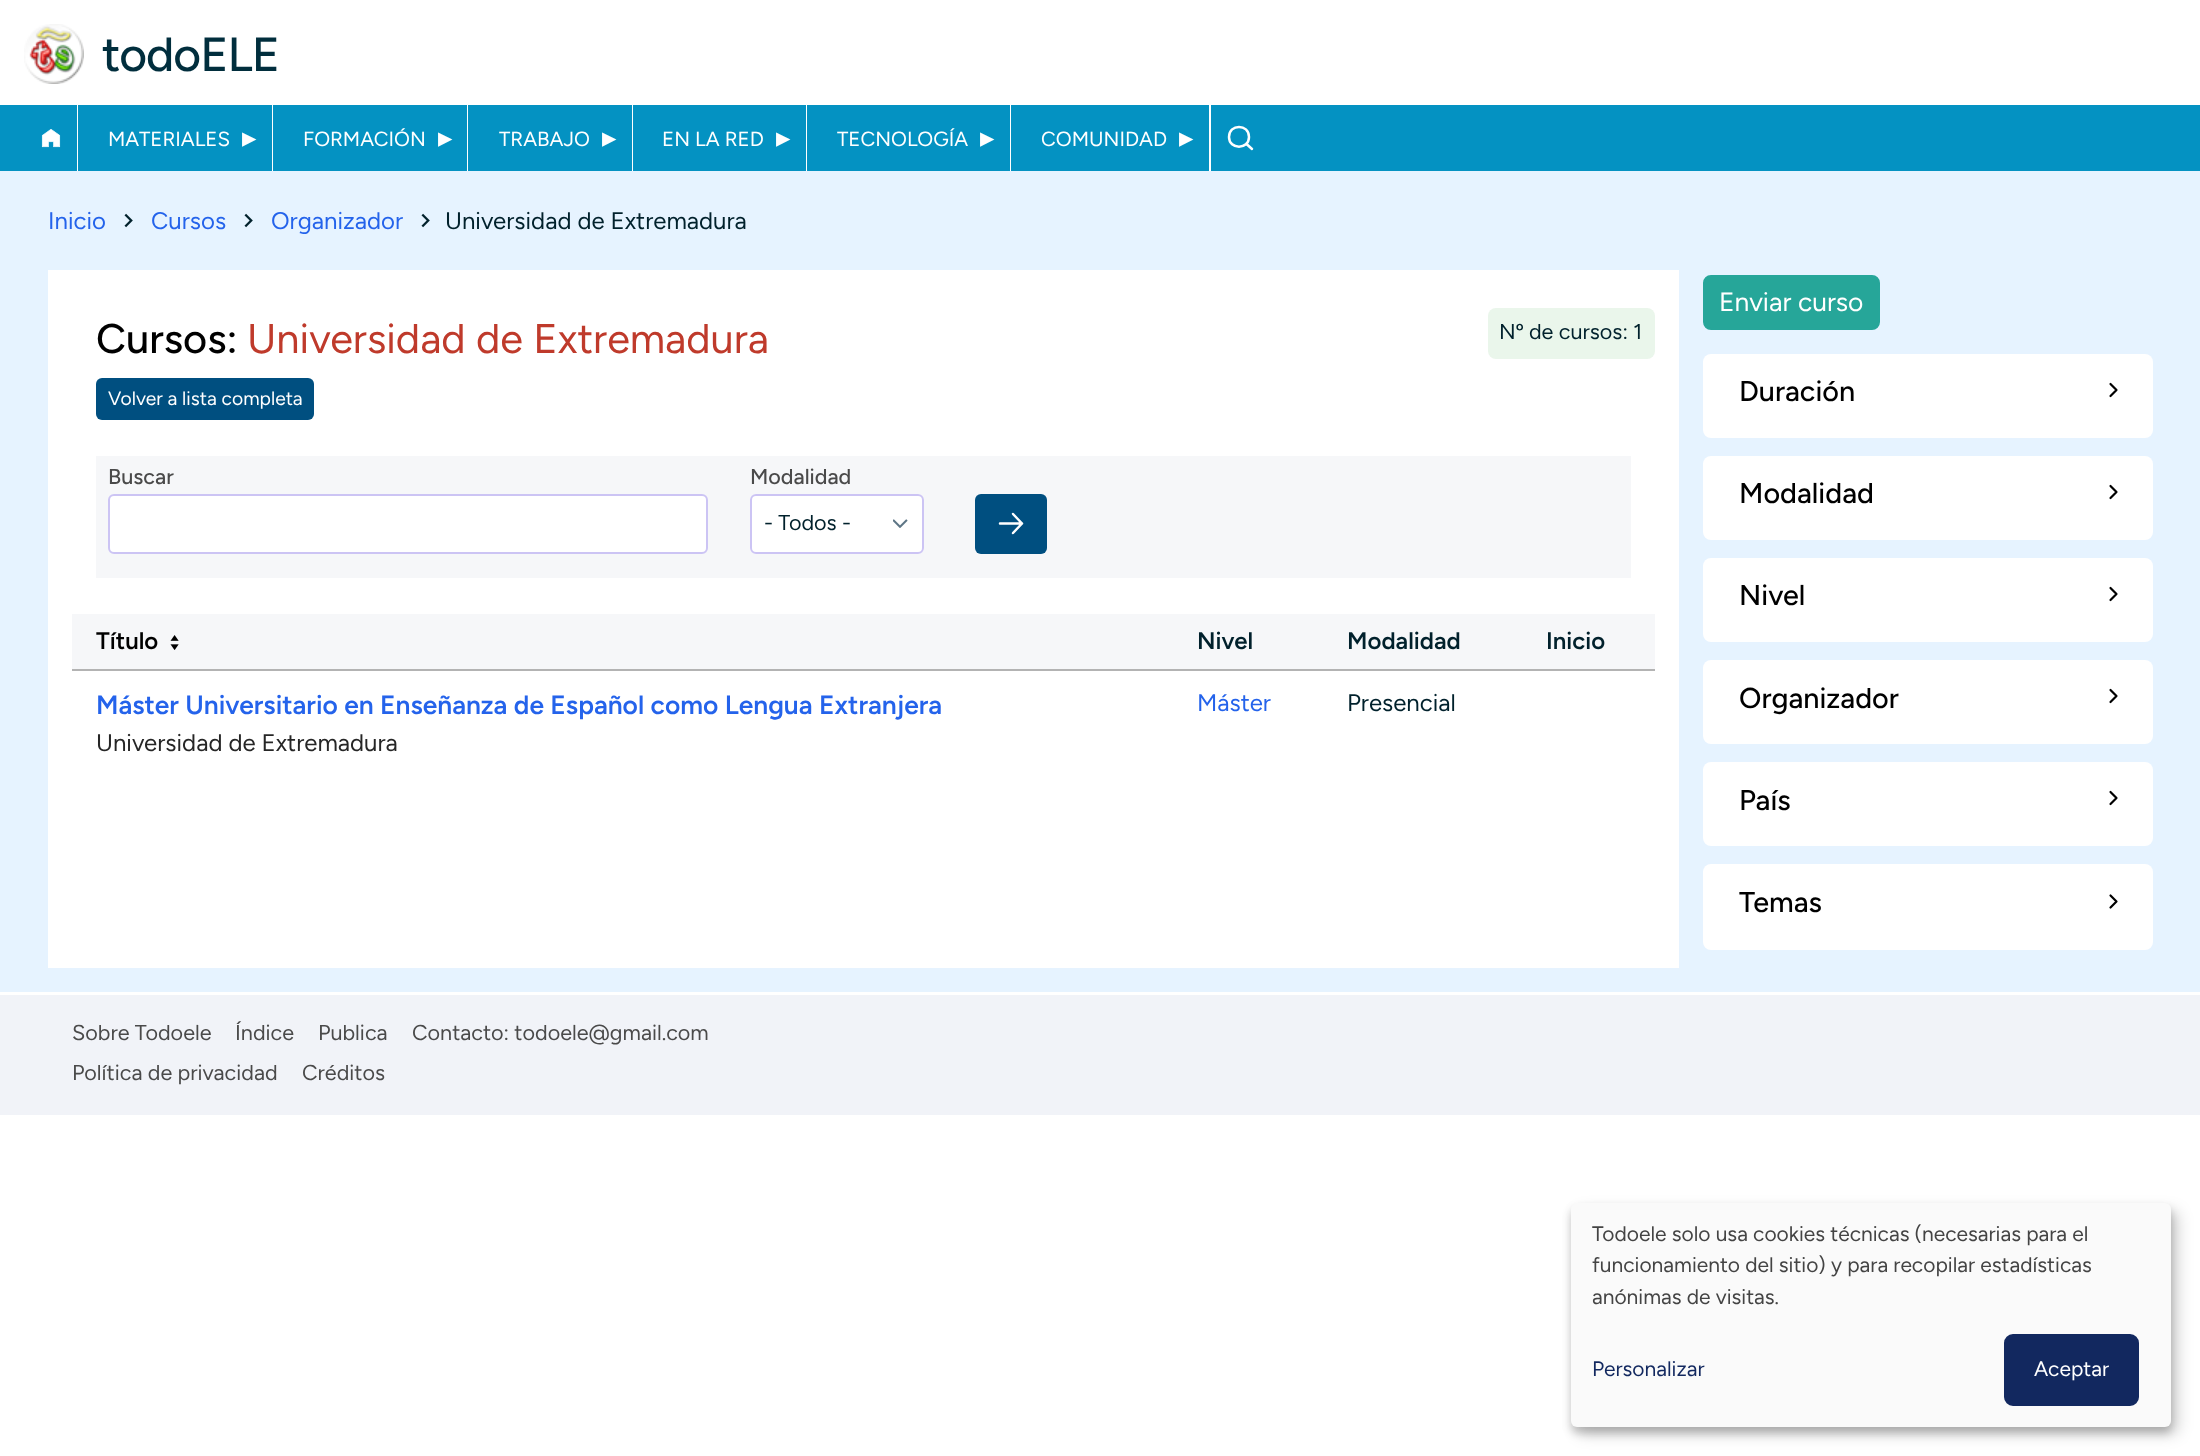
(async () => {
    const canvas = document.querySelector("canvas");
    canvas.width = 2200;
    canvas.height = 1456;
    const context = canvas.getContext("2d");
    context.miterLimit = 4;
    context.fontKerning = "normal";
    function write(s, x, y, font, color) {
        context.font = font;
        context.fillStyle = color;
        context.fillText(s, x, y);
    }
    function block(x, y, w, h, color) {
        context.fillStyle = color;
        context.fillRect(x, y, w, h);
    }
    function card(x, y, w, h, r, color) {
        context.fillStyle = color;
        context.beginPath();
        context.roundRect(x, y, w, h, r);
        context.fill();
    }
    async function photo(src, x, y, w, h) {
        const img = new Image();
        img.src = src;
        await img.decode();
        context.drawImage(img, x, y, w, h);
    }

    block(0, 0, 2200, 1456, "rgb(255, 255, 255)");
    block(0, 171, 2200, 821, "rgb(230, 243, 255)");
    await photo("media/1.png", 24, 24, 60, 60);
    context.letterSpacing = "-1px";
    write("todoELE", 102, 71, "500 48px Figtree", "rgb(1, 46, 61)");
    block(0, 105, 2200, 66, "rgb(4, 146, 194)");
    block(77, 105, 1, 66, "rgb(255, 255, 255)");
    await photo("media/2.png", 41, 129, 20, 19);
    block(272, 105, 1, 66, "rgb(255, 255, 255)");
    context.letterSpacing = "0px";
    write("MATERIALES", 108, 146, "20.5px Figtree", "rgb(255, 255, 255)");
    write("▸", 242, 147, "28.75px DejaVu Sans", "rgb(255, 255, 255)");
    block(467, 105, 1, 66, "rgb(255, 255, 255)");
    write("FORMACIÓN", 303, 146, "20.5px Figtree", "rgb(255, 255, 255)");
    write("▸", 438, 147, "28.75px DejaVu Sans", "rgb(255, 255, 255)");
    block(632, 105, 1, 66, "rgb(255, 255, 255)");
    write("TRABAJO", 499, 146, "20.5px Figtree", "rgb(255, 255, 255)");
    write("▸", 602, 147, "28.75px DejaVu Sans", "rgb(255, 255, 255)");
    block(806, 105, 1, 66, "rgb(255, 255, 255)");
    write("EN LA RED", 662, 146, "20.5px Figtree", "rgb(255, 255, 255)");
    write("▸", 776, 147, "28.75px DejaVu Sans", "rgb(255, 255, 255)");
    block(1010, 105, 1, 66, "rgb(255, 255, 255)");
    write("TECNOLOGÍA", 837, 146, "20.5px Figtree", "rgb(255, 255, 255)");
    write("▸", 980, 147, "28.75px DejaVu Sans", "rgb(255, 255, 255)");
    block(1209, 105, 2, 66, "rgb(255, 255, 255)");
    write("COMUNIDAD", 1041, 146, "20.5px Figtree", "rgb(255, 255, 255)");
    write("▸", 1179, 147, "28.75px DejaVu Sans", "rgb(255, 255, 255)");
    context.beginPath();
    context.moveTo(1246.5, 144);
    context.lineTo(1252, 149);
    context.moveTo(1249, 137);
    context.bezierCurveTo(1249, 150, 1229, 150, 1229, 137);
    context.bezierCurveTo(1229, 123.5, 1249, 123.5, 1249, 137);
    context.closePath();
    context.strokeStyle = "rgb(255, 255, 255)";
    context.lineWidth = 2.5;
    context.lineCap = "round";
    context.lineJoin = "round";
    context.stroke();
    write("Inicio", 48, 229, "24px Figtree", "rgb(36, 99, 235)");
    await photo("media/3.png", 124, 213, 9, 15);
    write("Cursos", 151, 229, "24px Figtree", "rgb(36, 99, 235)");
    await photo("media/3.png", 244, 213, 9, 15);
    write("Organizador", 271, 229, "24px Figtree", "rgb(36, 99, 235)");
    await photo("media/3.png", 421, 213, 9, 15);
    write("Universidad de Extremadura", 445, 229, "24px Figtree", "rgb(1, 33, 44)");
    block(48, 270, 1631, 698, "rgb(255, 255, 255)");
    write("Cursos:", 96, 353, "500 41.5px Figtree", "rgb(0, 0, 0)");
    write("Universidad de Extremadura", 247, 353, "41.5px Figtree", "rgb(191, 58, 43)");
    card(1488, 308, 167, 51, 8, "rgb(234, 246, 235)");
    write("Nº de cursos: 1", 1499, 339, "21.6px Figtree", "rgb(1, 33, 44)");
    card(96, 378, 218, 42, 6, "rgb(0, 79, 128)");
    write("Volver a lista completa", 108, 405, "19.25px Figtree", "rgb(255, 255, 255)");
    block(96, 456, 1535, 122, "rgb(246, 247, 249)");
    write("Buscar", 108, 484, "500 21.6px Figtree", "rgb(74, 74, 74)");
    context.fillStyle = "rgb(255, 255, 255)";
    context.beginPath();
    context.roundRect(109, 495, 598, 58, 5);
    context.fill();
    context.strokeStyle = "rgb(204, 196, 244)";
    context.lineWidth = 2;
    context.lineJoin = "miter";
    context.stroke();
    write("Modalidad", 750, 484, "500 21.6px Figtree", "rgb(74, 74, 74)");
    card(750, 494, 174, 60, 6, "rgb(255, 255, 255)");
    await photo("media/4.png", 893, 519, 15, 9);
    context.beginPath();
    context.roundRect(751, 495, 172, 58, 5);
    context.stroke();
    write("- Todos -", 764, 530, "21.6px Figtree", "rgb(1, 33, 44)");
    card(975, 494, 72, 60, 6, "rgb(0, 79, 128)");
    context.beginPath();
    context.moveTo(1013, 514);
    context.lineTo(1022, 523.5);
    context.moveTo(1022, 523.5);
    context.lineTo(1013, 533);
    context.moveTo(1022, 523.5);
    context.lineTo(1000, 523.5);
    context.strokeStyle = "rgb(255, 255, 255)";
    context.lineWidth = 2.5;
    context.lineJoin = "round";
    context.stroke();
    block(72, 614, 1583, 55, "rgb(246, 247, 249)");
    block(72, 669, 1583, 2, "rgb(179, 179, 179)");
    write("Título", 96, 649, "600 24px Figtree", "rgb(0, 0, 0)");
    await photo("media/5.png", 170, 635, 9, 15);
    write("Nivel", 1197, 649, "600 24px Figtree", "rgb(1, 33, 44)");
    write("Modalidad", 1347, 649, "600 24px Figtree", "rgb(1, 33, 44)");
    write("Inicio", 1546, 649, "600 24px Figtree", "rgb(1, 33, 44)");
    write("Máster Universitario en Enseñanza de Español como Lengua Extranjera", 96, 714, "600 26.4px Figtree", "rgb(36, 99, 235)");
    write("Universidad de Extremadura", 96, 751, "24px Figtree", "rgb(38, 38, 38)");
    write("Máster", 1197, 711, "24px Figtree", "rgb(36, 99, 235)");
    write("Presencial", 1347, 711, "24px Figtree", "rgb(1, 33, 44)");
    context.fillStyle = "rgb(38, 166, 153)";
    context.beginPath();
    context.roundRect(1704, 276, 175, 53, 7);
    context.fill();
    context.strokeStyle = "rgb(38, 166, 154)";
    context.lineWidth = 2;
    context.lineJoin = "miter";
    context.stroke();
    write("Enviar curso", 1719, 311, "26.4px Figtree", "rgb(255, 255, 255)");
    card(1703, 354, 450, 84, 8, "rgb(255, 255, 255)");
    context.beginPath();
    context.moveTo(2110.5, 384);
    context.lineTo(2116.5, 390);
    context.lineTo(2110.5, 396);
    context.strokeStyle = "rgb(0, 0, 0)";
    context.lineWidth = 2.2;
    context.lineJoin = "round";
    context.stroke();
    write("Duración", 1739, 401, "500 28.75px Figtree", "rgb(0, 0, 0)");
    card(1703, 456, 450, 84, 8, "rgb(255, 255, 255)");
    context.beginPath();
    context.moveTo(2110.5, 486);
    context.lineTo(2116.5, 492);
    context.lineTo(2110.5, 498);
    context.stroke();
    write("Modalidad", 1739, 503, "500 28.75px Figtree", "rgb(0, 0, 0)");
    card(1703, 558, 450, 84, 8, "rgb(255, 255, 255)");
    context.beginPath();
    context.moveTo(2110.5, 588);
    context.lineTo(2116.5, 594);
    context.lineTo(2110.5, 600);
    context.stroke();
    write("Nivel", 1739, 605, "500 28.75px Figtree", "rgb(0, 0, 0)");
    card(1703, 660, 450, 84, 8, "rgb(255, 255, 255)");
    context.beginPath();
    context.moveTo(2110.5, 690);
    context.lineTo(2116.5, 696);
    context.lineTo(2110.5, 702);
    context.stroke();
    write("Organizador", 1739, 708, "500 28.75px Figtree", "rgb(0, 0, 0)");
    card(1703, 762, 450, 84, 8, "rgb(255, 255, 255)");
    context.beginPath();
    context.moveTo(2110.5, 792);
    context.lineTo(2116.5, 798);
    context.lineTo(2110.5, 804);
    context.stroke();
    write("País", 1739, 810, "500 28.75px Figtree", "rgb(0, 0, 0)");
    card(1703, 864, 450, 86, 8, "rgb(255, 255, 255)");
    context.beginPath();
    context.moveTo(2110.5, 895.5);
    context.lineTo(2116.5, 901.5);
    context.lineTo(2110.5, 907.5);
    context.stroke();
    write("Temas", 1739, 912, "500 28.75px Figtree", "rgb(0, 0, 0)");
    block(0, 995, 2200, 120, "rgb(241, 243, 248)");
    write("Sobre Todoele", 72, 1040, "21.6px Figtree", "rgb(74, 74, 74)");
    write("Índice", 235, 1040, "21.6px Figtree", "rgb(74, 74, 74)");
    write("Publica", 318, 1040, "21.6px Figtree", "rgb(74, 74, 74)");
    write("Contacto: todoele@gmail.com", 412, 1040, "21.6px Figtree", "rgb(74, 74, 74)");
    write("Política de privacidad", 72, 1080, "21.6px Figtree", "rgb(74, 74, 74)");
    write("Créditos", 302, 1080, "21.6px Figtree", "rgb(74, 74, 74)");
    context.fillStyle = "rgba(0, 0, 0, 0.19)";
    context.filter = "blur(7.5px)";
    context.beginPath();
    context.roundRect(1578, 1211, 600, 223, 6);
    context.fill();
    context.filter = "none";
    context.fillStyle = "rgba(0, 0, 0, 0.2)";
    context.filter = "blur(4.5px)";
    context.beginPath();
    context.roundRect(1571, 1209, 600, 224, 6);
    context.fill();
    context.filter = "none";
    card(1571, 1203, 600, 224, 6, "rgb(250, 250, 250)");
    write("Todoele solo usa cookies técnicas (necesarias para el", 1592, 1241, "21px Figtree", "rgb(68, 68, 68)");
    write("funcionamiento del sitio) y para recopilar estadísticas", 1592, 1272, "21px Figtree", "rgb(68, 68, 68)");
    write("anónimas de visitas.", 1592, 1304, "21px Figtree", "rgb(68, 68, 68)");
    write("Personalizar", 1592, 1376, "21px Figtree", "rgb(18, 40, 95)");
    context.beginPath();
    context.roundRect(2006.5, 1336.5, 130, 67, 6.5);
    context.fill();
    context.strokeStyle = "rgb(18, 40, 95)";
    context.lineWidth = 5;
    context.lineJoin = "miter";
    context.stroke();
    write("Aceptar", 2034, 1376, "21px Figtree", "rgb(255, 255, 255)");
})();
